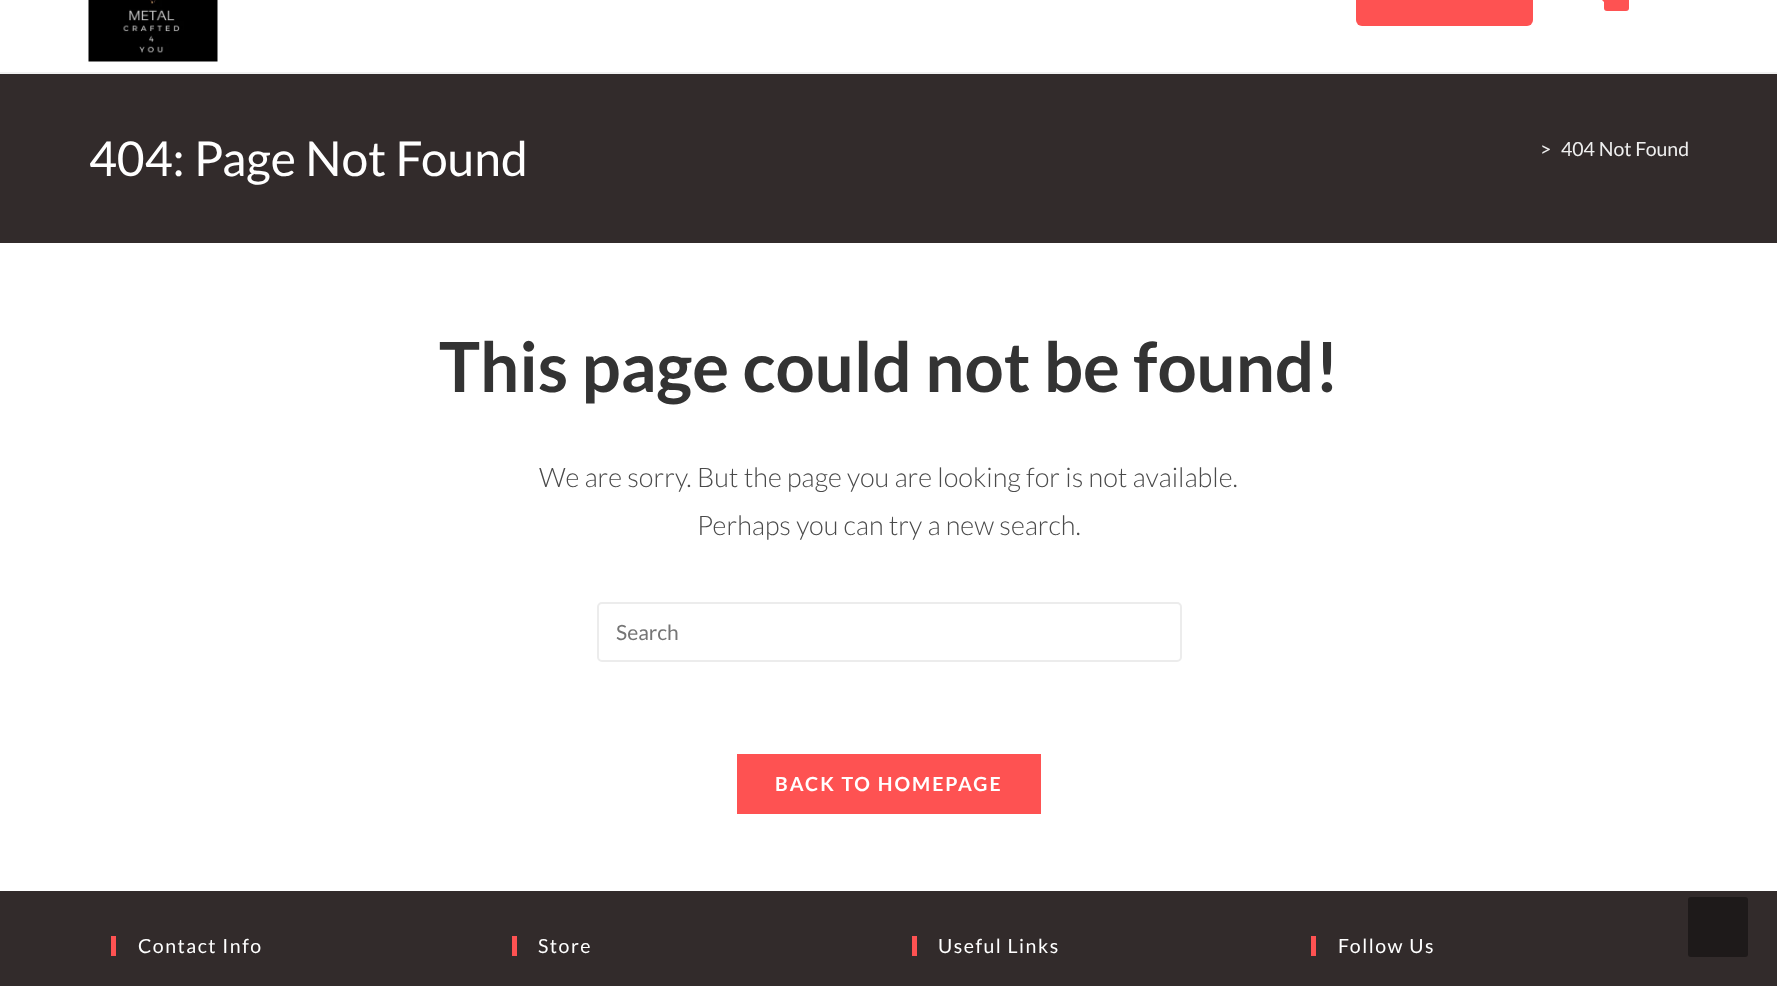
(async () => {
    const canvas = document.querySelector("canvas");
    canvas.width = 1777;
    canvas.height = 986;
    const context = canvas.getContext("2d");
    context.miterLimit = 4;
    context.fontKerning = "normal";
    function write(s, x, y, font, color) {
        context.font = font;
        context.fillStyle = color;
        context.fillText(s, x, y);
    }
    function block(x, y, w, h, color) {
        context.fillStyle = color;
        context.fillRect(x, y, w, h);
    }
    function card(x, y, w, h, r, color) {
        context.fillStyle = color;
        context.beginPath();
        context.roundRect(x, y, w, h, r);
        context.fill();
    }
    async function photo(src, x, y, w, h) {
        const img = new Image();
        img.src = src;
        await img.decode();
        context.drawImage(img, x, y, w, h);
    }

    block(0, 0, 1777, 986, "rgb(255, 255, 255)");
    block(0, 72, 1777, 2, "rgb(241, 241, 241)");
    await photo("media/1.png", 88, 0, 130, 62);
    card(1356, -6, 177, 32, 6, "rgb(254, 82, 82)");
    card(1604, -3, 25, 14, 3, "rgb(254, 82, 82)");
    context.beginPath();
    context.moveTo(1606.5, -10.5);
    context.lineTo(1606.5, 4.5);
    context.lineTo(1599, -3);
    context.closePath();
    context.fill();
    block(0, 74, 1777, 169, "rgb(50, 43, 43)");
    write("404: Page Not Found", 89, 176, "48px Lato", "rgb(255, 255, 255)");
    write(">", 1540, 156, "19.5px Lato", "rgb(239, 239, 239)");
    write("404 Not Found", 1561, 156, "19.5px Lato", "rgb(239, 239, 239)");
    write("This page could not be found!", 439, 392, "bold 69px Lato", "rgb(51, 51, 51)");
    write("We are sorry. But the page you are looking for is not available.", 539, 487, "300 27px Lato", "rgb(74, 74, 74)");
    write("Perhaps you can try a new search.", 697, 535, "300 27px Lato", "rgb(74, 74, 74)");
    context.beginPath();
    context.roundRect(598, 603, 583, 58, 4);
    context.strokeStyle = "rgb(236, 236, 236)";
    context.lineWidth = 2;
    context.stroke();
    write("Search", 616, 640, "21px Lato", "rgb(117, 117, 117)");
    block(737, 754, 304, 60, "rgb(254, 82, 82)");
    context.letterSpacing = "2px";
    write("BACK TO HOMEPAGE", 775, 791, "bold 19.5px Lato", "rgb(255, 255, 255)");
    block(0, 891, 1777, 95, "rgb(50, 43, 43)");
    block(111, 936, 5, 20, "rgb(254, 82, 82)");
    context.letterSpacing = "1.5px";
    write("Contact Info", 138, 953, "19.5px Lato", "rgb(255, 255, 255)");
    block(512, 936, 5, 20, "rgb(254, 82, 82)");
    write("Store", 538, 953, "19.5px Lato", "rgb(255, 255, 255)");
    block(912, 936, 5, 20, "rgb(254, 82, 82)");
    write("Useful Links", 938, 953, "19.5px Lato", "rgb(255, 255, 255)");
    block(1311, 936, 5, 20, "rgb(254, 82, 82)");
    write("Follow Us", 1338, 953, "19.5px Lato", "rgb(255, 255, 255)");
    card(1688, 897, 60, 60, 3, "rgb(30, 26, 26)");
})();
